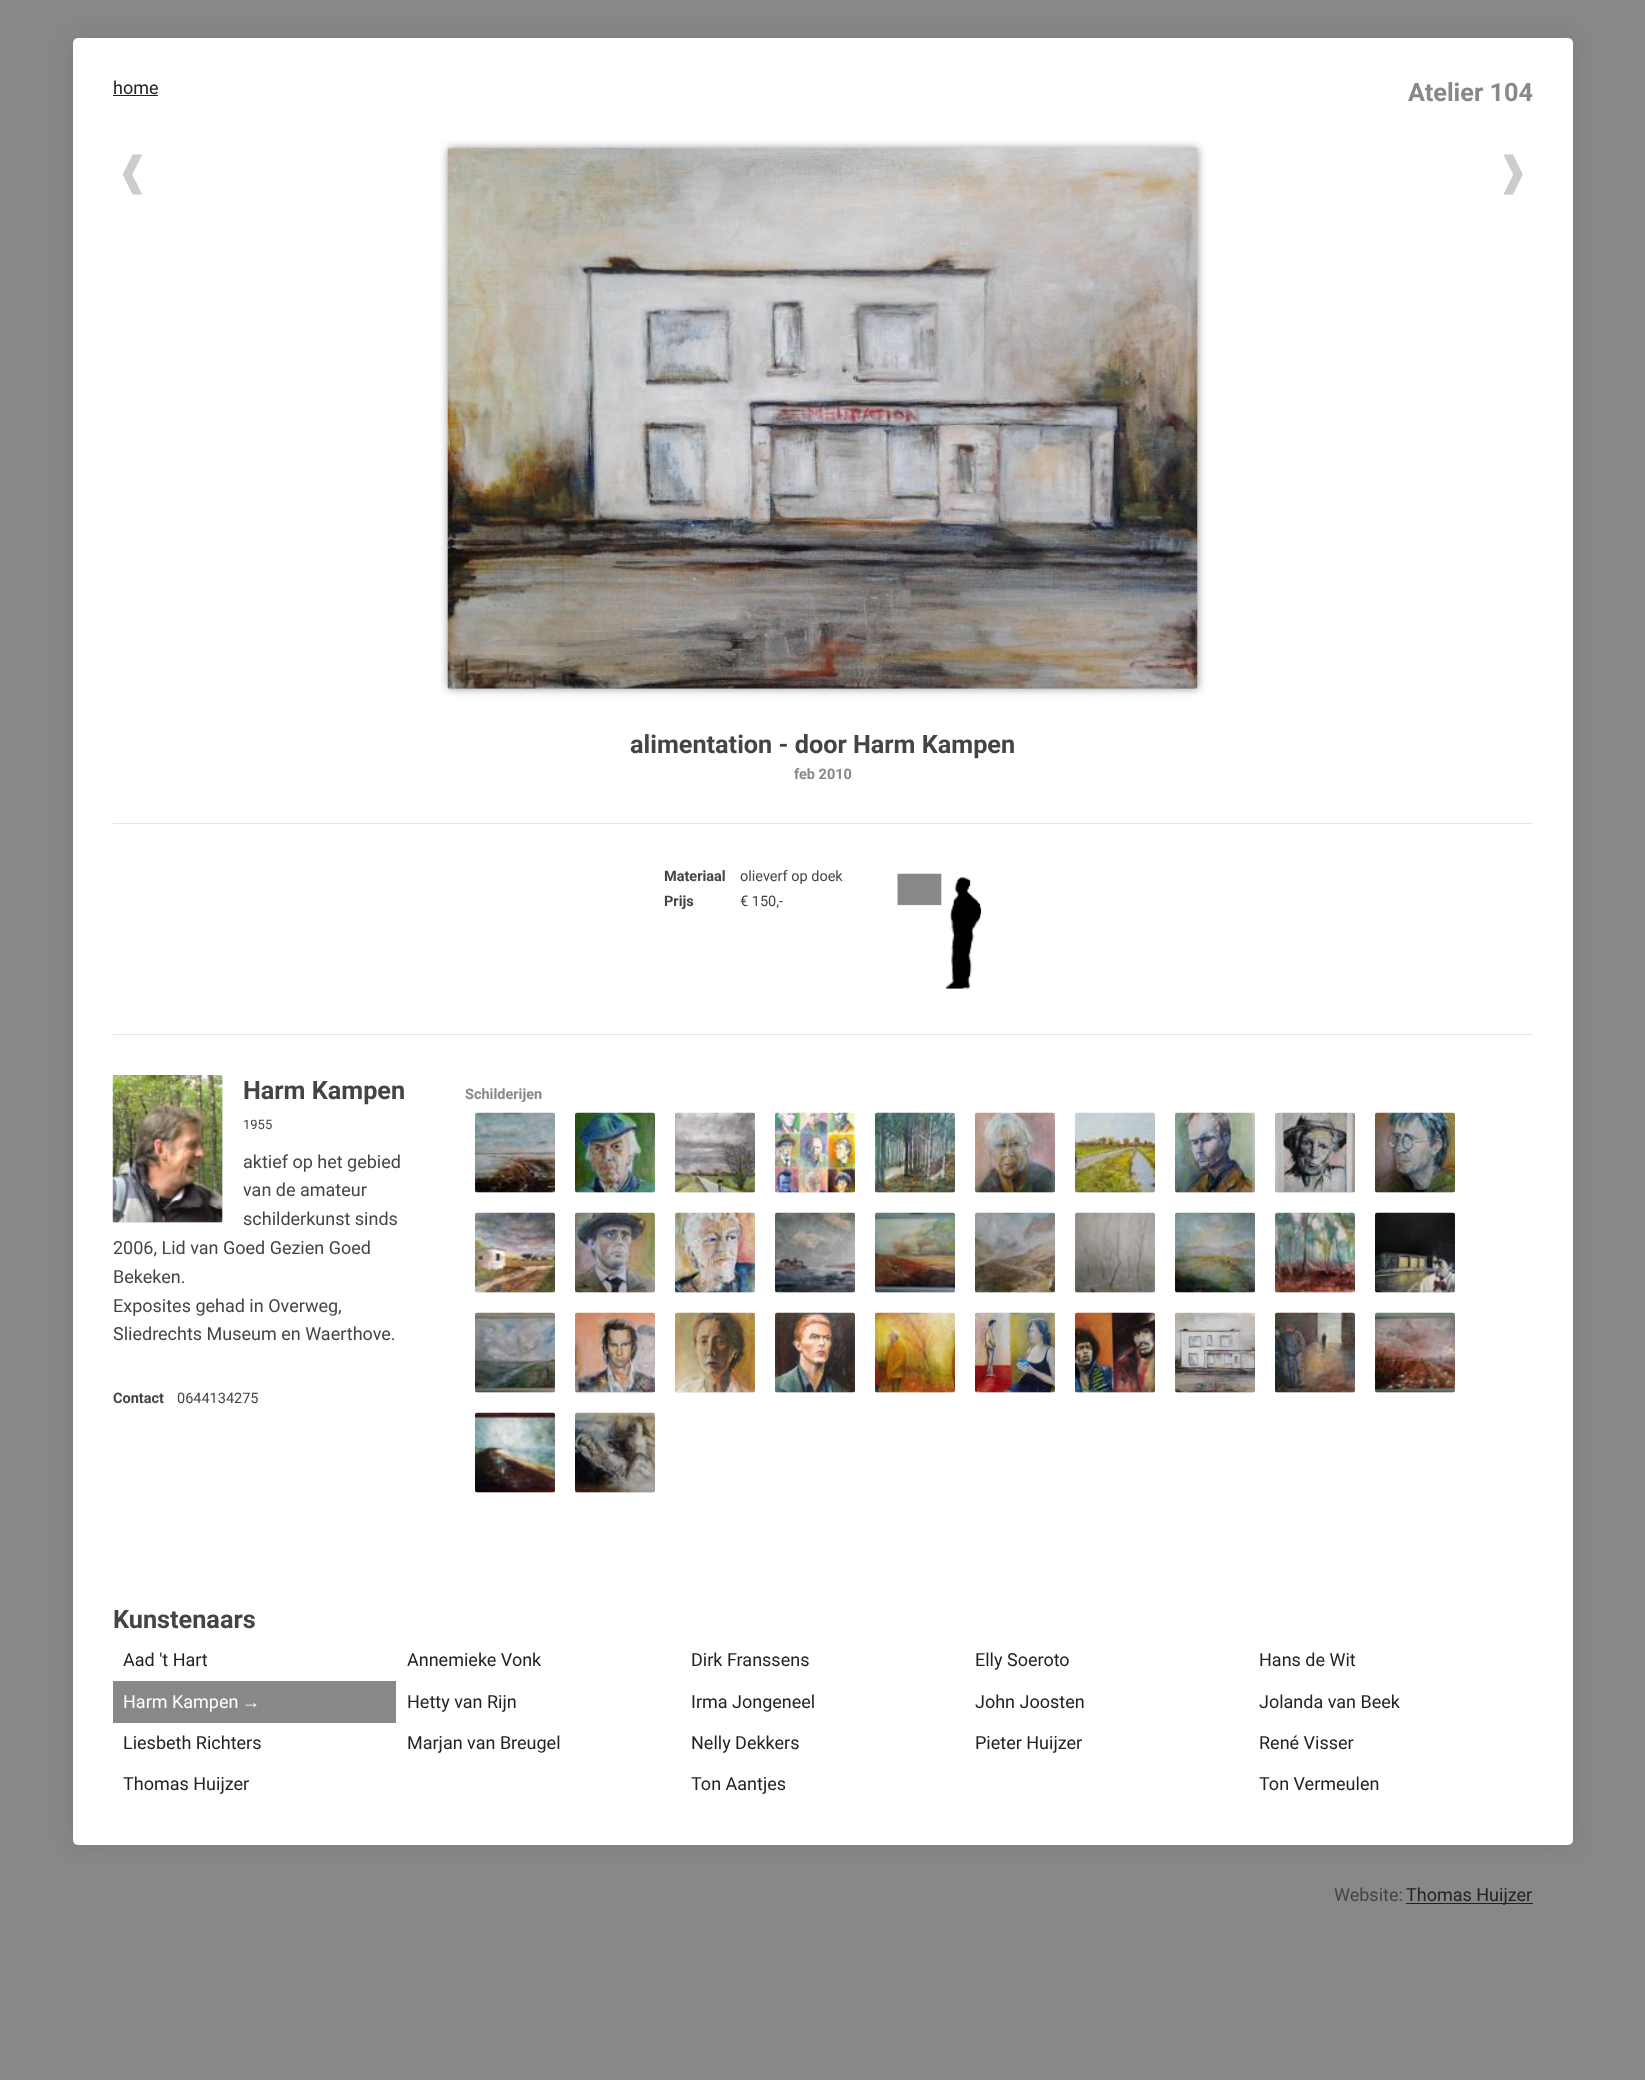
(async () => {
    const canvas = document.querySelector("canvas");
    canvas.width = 1645;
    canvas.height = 2080;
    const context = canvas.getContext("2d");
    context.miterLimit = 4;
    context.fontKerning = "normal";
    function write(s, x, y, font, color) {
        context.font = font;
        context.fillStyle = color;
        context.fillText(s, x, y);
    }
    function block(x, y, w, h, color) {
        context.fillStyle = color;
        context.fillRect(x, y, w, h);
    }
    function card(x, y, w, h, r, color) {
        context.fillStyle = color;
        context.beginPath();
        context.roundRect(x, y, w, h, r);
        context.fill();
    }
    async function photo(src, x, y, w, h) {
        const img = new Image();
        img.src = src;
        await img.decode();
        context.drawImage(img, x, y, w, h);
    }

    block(0, 0, 1645, 2080, "rgb(136, 136, 136)");
    context.fillStyle = "rgba(0, 0, 0, 0.1)";
    context.filter = "blur(12.5px)";
    context.beginPath();
    context.roundRect(73, 38, 1500, 1807, 5);
    context.fill();
    context.filter = "none";
    card(73, 38, 1500, 1807, 5, "rgb(255, 255, 255)");
    write("home", 113, 94, "18px Roboto", "rgb(34, 34, 34)");
    block(113, 95, 45, 1, "rgb(34, 34, 34)");
    write("Atelier 104", 1408, 101, "bold 25.25px Roboto", "rgb(136, 136, 136)");
    write("❰", 116, 185, "40px DejaVu Sans", "rgb(204, 204, 204)");
    context.fillStyle = "rgba(0, 0, 0, 0.4)";
    context.filter = "blur(4px)";
    context.beginPath();
    context.roundRect(448, 148, 750, 541, 2.5);
    context.fill();
    context.filter = "none";
    await photo("media/1.png", 447, 147, 751, 542);
    write("❱", 1496, 185, "40px DejaVu Sans", "rgb(204, 204, 204)");
    write("alimentation - door Harm Kampen", 630, 753, "bold 25.25px Roboto", "rgb(68, 68, 68)");
    write("feb 2010", 794, 779, "bold 14.5px Roboto", "rgb(136, 136, 136)");
    block(113, 823, 1420, 1, "rgb(230, 230, 230)");
    block(113, 1034, 1420, 1, "rgb(230, 230, 230)");
    write("Materiaal", 664, 881, "bold 14.5px Roboto", "rgb(68, 68, 68)");
    write("olieverf op doek", 740, 881, "14.5px Roboto", "rgb(68, 68, 68)");
    write("Prijs", 664, 906, "bold 14.5px Roboto", "rgb(68, 68, 68)");
    write("€ 150,-", 740, 906, "14.5px Roboto", "rgb(68, 68, 68)");
    await photo("media/2.png", 897, 873, 85, 116);
    card(113, 1075, 110, 148, 2.5, "rgb(238, 238, 238)");
    await photo("media/3.png", 112, 1075, 111, 148);
    write("Harm Kampen", 243, 1099, "bold 25.25px Roboto", "rgb(68, 68, 68)");
    write("1955", 243, 1129, "13px Roboto", "rgb(68, 68, 68)");
    write("aktief op het gebied", 243, 1168, "18px Roboto", "rgb(68, 68, 68)");
    write("van de amateur", 243, 1196, "18px Roboto", "rgb(68, 68, 68)");
    write("schilderkunst sinds", 243, 1225, "18px Roboto", "rgb(68, 68, 68)");
    write("2006, Lid van Goed Gezien Goed", 113, 1254, "18px Roboto", "rgb(68, 68, 68)");
    write("Bekeken.", 113, 1283, "18px Roboto", "rgb(68, 68, 68)");
    write("Exposites gehad in Overweg,", 113, 1312, "18px Roboto", "rgb(68, 68, 68)");
    write("Sliedrechts Museum en Waerthove.", 113, 1340, "18px Roboto", "rgb(68, 68, 68)");
    write("Contact", 113, 1403, "bold 14.5px Roboto", "rgb(68, 68, 68)");
    write("0644134275", 177, 1403, "14.5px Roboto", "rgb(68, 68, 68)");
    write("Schilderijen", 465, 1099, "bold 14.5px Roboto", "rgb(136, 136, 136)");
    card(475, 1113, 80, 80, 2.5, "rgb(238, 238, 238)");
    await photo("media/4.png", 475, 1112, 80, 81);
    card(575, 1113, 80, 80, 2.5, "rgb(238, 238, 238)");
    await photo("media/5.png", 575, 1112, 80, 81);
    card(675, 1113, 80, 80, 2.5, "rgb(238, 238, 238)");
    await photo("media/6.png", 675, 1112, 80, 81);
    card(775, 1113, 80, 80, 2.5, "rgb(238, 238, 238)");
    await photo("media/7.png", 775, 1112, 80, 81);
    card(875, 1113, 80, 80, 2.5, "rgb(238, 238, 238)");
    await photo("media/8.png", 875, 1112, 80, 81);
    card(975, 1113, 80, 80, 2.5, "rgb(238, 238, 238)");
    await photo("media/9.png", 975, 1112, 80, 81);
    card(1075, 1113, 80, 80, 2.5, "rgb(238, 238, 238)");
    await photo("media/10.png", 1075, 1112, 80, 81);
    card(1175, 1113, 80, 80, 2.5, "rgb(238, 238, 238)");
    await photo("media/11.png", 1175, 1112, 80, 81);
    card(1275, 1113, 80, 80, 2.5, "rgb(238, 238, 238)");
    await photo("media/12.png", 1275, 1112, 80, 81);
    card(1375, 1113, 80, 80, 2.5, "rgb(238, 238, 238)");
    await photo("media/13.png", 1375, 1112, 80, 81);
    card(475, 1213, 80, 80, 2.5, "rgb(238, 238, 238)");
    await photo("media/14.png", 475, 1212, 80, 81);
    card(575, 1213, 80, 80, 2.5, "rgb(238, 238, 238)");
    await photo("media/15.png", 575, 1212, 80, 81);
    card(675, 1213, 80, 80, 2.5, "rgb(238, 238, 238)");
    await photo("media/16.png", 675, 1212, 80, 81);
    card(775, 1213, 80, 80, 2.5, "rgb(238, 238, 238)");
    await photo("media/17.png", 775, 1212, 80, 81);
    card(875, 1213, 80, 80, 2.5, "rgb(238, 238, 238)");
    await photo("media/18.png", 875, 1212, 80, 81);
    card(975, 1213, 80, 80, 2.5, "rgb(238, 238, 238)");
    await photo("media/19.png", 975, 1212, 80, 81);
    card(1075, 1213, 80, 80, 2.5, "rgb(238, 238, 238)");
    await photo("media/20.png", 1075, 1212, 80, 81);
    card(1175, 1213, 80, 80, 2.5, "rgb(238, 238, 238)");
    await photo("media/21.png", 1175, 1212, 80, 81);
    card(1275, 1213, 80, 80, 2.5, "rgb(238, 238, 238)");
    await photo("media/22.png", 1275, 1212, 80, 81);
    card(1375, 1213, 80, 80, 2.5, "rgb(238, 238, 238)");
    await photo("media/23.png", 1375, 1212, 80, 81);
    card(475, 1313, 80, 80, 2.5, "rgb(238, 238, 238)");
    await photo("media/24.png", 475, 1312, 80, 81);
    card(575, 1313, 80, 80, 2.5, "rgb(238, 238, 238)");
    await photo("media/25.png", 575, 1312, 80, 81);
    card(675, 1313, 80, 80, 2.5, "rgb(238, 238, 238)");
    await photo("media/26.png", 675, 1312, 80, 81);
    card(775, 1313, 80, 80, 2.5, "rgb(238, 238, 238)");
    await photo("media/27.png", 775, 1312, 80, 81);
    card(875, 1313, 80, 80, 2.5, "rgb(238, 238, 238)");
    await photo("media/28.png", 875, 1312, 80, 81);
    card(975, 1313, 80, 80, 2.5, "rgb(238, 238, 238)");
    await photo("media/29.png", 975, 1312, 80, 81);
    card(1075, 1313, 80, 80, 2.5, "rgb(238, 238, 238)");
    await photo("media/30.png", 1075, 1312, 80, 81);
    card(1175, 1313, 80, 80, 2.5, "rgb(238, 238, 238)");
    await photo("media/31.png", 1175, 1312, 80, 81);
    card(1275, 1313, 80, 80, 2.5, "rgb(238, 238, 238)");
    await photo("media/32.png", 1275, 1312, 80, 81);
    card(1375, 1313, 80, 80, 2.5, "rgb(238, 238, 238)");
    await photo("media/33.png", 1375, 1312, 80, 81);
    card(475, 1413, 80, 80, 2.5, "rgb(238, 238, 238)");
    await photo("media/34.png", 475, 1412, 80, 81);
    card(575, 1413, 80, 80, 2.5, "rgb(238, 238, 238)");
    await photo("media/35.png", 575, 1412, 80, 81);
    write("Kunstenaars", 113, 1628, "bold 25.25px Roboto", "rgb(68, 68, 68)");
    write("Aad 't Hart", 123, 1666, "18px Roboto", "rgb(34, 34, 34)");
    write("Annemieke Vonk", 407, 1666, "18px Roboto", "rgb(34, 34, 34)");
    write("Dirk Franssens", 691, 1666, "18px Roboto", "rgb(34, 34, 34)");
    write("Elly Soeroto", 975, 1666, "18px Roboto", "rgb(34, 34, 34)");
    write("Hans de Wit", 1259, 1666, "18px Roboto", "rgb(34, 34, 34)");
    block(113, 1681, 283, 42, "rgb(136, 136, 136)");
    write("Harm Kampen", 123, 1708, "18px Roboto", "rgb(255, 255, 255)");
    write("→", 242, 1708, "18px Liberation Sans", "rgb(255, 255, 255)");
    write("Hetty van Rijn", 407, 1708, "18px Roboto", "rgb(34, 34, 34)");
    write("Irma Jongeneel", 691, 1708, "18px Roboto", "rgb(34, 34, 34)");
    write("John Joosten", 975, 1708, "18px Roboto", "rgb(34, 34, 34)");
    write("Jolanda van Beek", 1259, 1708, "18px Roboto", "rgb(34, 34, 34)");
    write("Liesbeth Richters", 123, 1749, "18px Roboto", "rgb(34, 34, 34)");
    write("Marjan van Breugel", 407, 1749, "18px Roboto", "rgb(34, 34, 34)");
    write("Nelly Dekkers", 691, 1749, "18px Roboto", "rgb(34, 34, 34)");
    write("Pieter Huijzer", 975, 1749, "18px Roboto", "rgb(34, 34, 34)");
    write("René Visser", 1259, 1749, "18px Roboto", "rgb(34, 34, 34)");
    write("Thomas Huijzer", 123, 1790, "18px Roboto", "rgb(34, 34, 34)");
    write("Ton Aantjes", 691, 1790, "18px Roboto", "rgb(34, 34, 34)");
    write("Ton Vermeulen", 1259, 1790, "18px Roboto", "rgb(34, 34, 34)");
    write("Website:", 1334, 1901, "18px Roboto", "rgb(68, 68, 68)");
    block(1406, 1903, 127, 1, "rgb(34, 34, 34)");
    write("Thomas Huijzer", 1406, 1901, "18px Roboto", "rgb(34, 34, 34)");
})();
